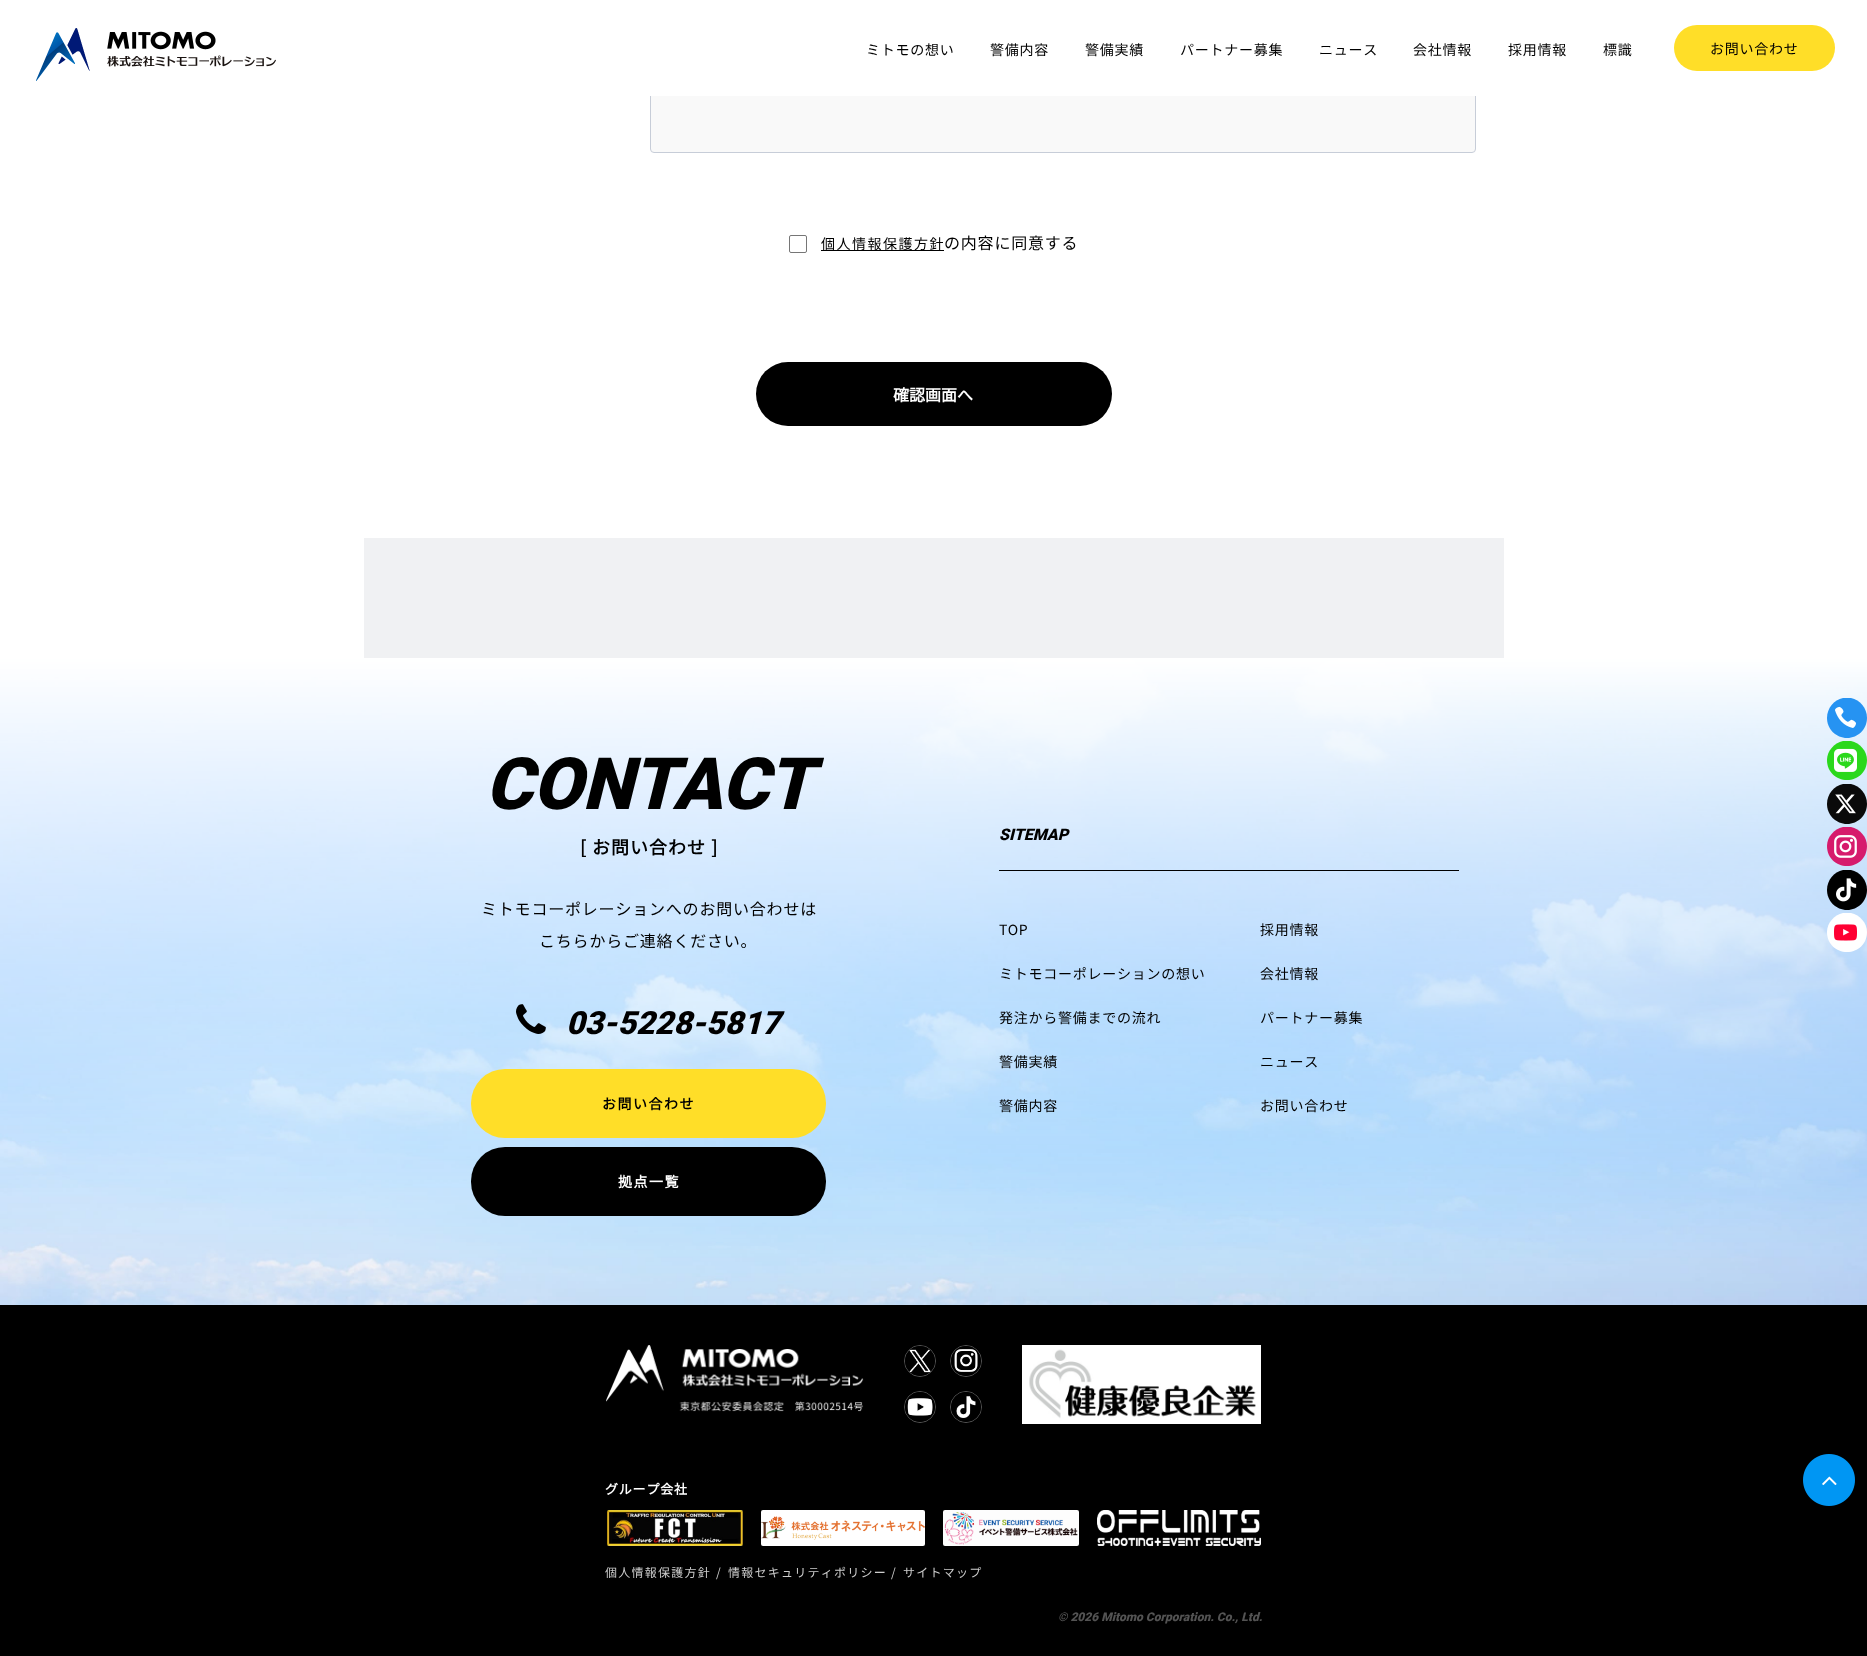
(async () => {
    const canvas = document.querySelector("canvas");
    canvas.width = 1867;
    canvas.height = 1656;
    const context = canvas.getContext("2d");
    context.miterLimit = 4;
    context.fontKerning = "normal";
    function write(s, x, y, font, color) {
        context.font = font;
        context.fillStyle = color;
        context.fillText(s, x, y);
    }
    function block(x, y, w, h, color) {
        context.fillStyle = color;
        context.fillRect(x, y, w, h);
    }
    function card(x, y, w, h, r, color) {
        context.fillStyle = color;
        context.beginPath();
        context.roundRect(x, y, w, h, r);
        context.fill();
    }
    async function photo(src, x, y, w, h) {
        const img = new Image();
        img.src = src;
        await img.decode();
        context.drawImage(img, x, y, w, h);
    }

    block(0, 0, 1867, 1656, "rgb(255, 255, 255)");
    context.fillStyle = "rgb(249, 249, 249)";
    context.beginPath();
    context.roundRect(650.5, -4.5, 825, 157, 3.5);
    context.fill();
    context.strokeStyle = "rgb(199, 205, 216)";
    context.stroke();
    block(650, 0, 826, 96, "rgb(255, 255, 255)");
    await photo("media/1.png", 36, 28, 240, 53);
    context.letterSpacing = "0.75px";
    write("ミトモの想い", 866, 55, "100 14px Noto Sans JP", "rgb(0, 0, 0)");
    write("警備内容", 990, 55, "100 14px Noto Sans JP", "rgb(0, 0, 0)");
    write("警備実績", 1085, 55, "100 14px Noto Sans JP", "rgb(0, 0, 0)");
    write("パートナー募集", 1180, 55, "100 14px Noto Sans JP", "rgb(0, 0, 0)");
    write("ニュース", 1319, 55, "100 14px Noto Sans JP", "rgb(0, 0, 0)");
    write("会社情報", 1413, 55, "100 14px Noto Sans JP", "rgb(0, 0, 0)");
    write("採用情報", 1508, 55, "100 14px Noto Sans JP", "rgb(0, 0, 0)");
    write("標識", 1603, 55, "100 14px Noto Sans JP", "rgb(0, 0, 0)");
    card(1674, 25, 161, 46, 23, "rgb(255, 222, 40)");
    write("お問い合わせ", 1710, 54, "100 14px Noto Sans JP", "rgb(0, 0, 0)");
    block(364, 538, 1140, 120, "rgb(240, 241, 243)");
    context.beginPath();
    context.roundRect(789.5, 235.5, 17, 17, 1.5);
    context.strokeStyle = "rgb(118, 118, 118)";
    context.stroke();
    block(821, 250, 123, 1, "rgb(0, 0, 0)");
    context.letterSpacing = "1.5px";
    write("個人情報保護方針", 821, 249, "100 14px Noto Sans JP", "rgb(0, 0, 0)");
    context.letterSpacing = "0.8px";
    write("の内容に同意する", 944, 249, "100 16px Noto Sans JP", "rgb(0, 0, 0)");
    card(756, 362, 356, 64, 32, "rgb(0, 0, 0)");
    context.letterSpacing = "0px";
    write("確認画面へ", 893, 401, "bold 16px Noto Sans JP", "rgb(255, 255, 255)");
    await photo("media/2.png", 0, 658, 1867, 647);
    write("CONTACT", 485, 809, "italic 900 72px Roboto", "rgb(0, 0, 0)");
    context.letterSpacing = "1px";
    write("[ お問い合わせ ]", 580, 854, "bold 18px Noto Sans JP", "rgb(0, 0, 0)");
    context.letterSpacing = "0.8px";
    write("ミトモコーポレーションへのお問い合わせは", 481, 915, "100 16px Noto Sans JP", "rgb(0, 0, 0)");
    write("こちらからご連絡ください。", 539, 947, "100 16px Noto Sans JP", "rgb(0, 0, 0)");
    await photo("media/3.png", 516, 1004, 30, 30);
    context.letterSpacing = "0px";
    write("03-5228-5817", 566, 1034, "italic 900 32px Roboto", "rgb(0, 0, 0)");
    card(471, 1069, 355, 69, 34, "rgb(255, 222, 40)");
    context.letterSpacing = "1.5px";
    write("お問い合わせ", 602, 1109, "bold 14px Noto Sans JP", "rgb(0, 0, 0)");
    card(471, 1147, 355, 69, 34, "rgb(0, 0, 0)");
    write("拠点一覧", 618, 1187, "bold 14px Noto Sans JP", "rgb(255, 255, 255)");
    block(999, 870, 460, 1, "rgb(0, 0, 0)");
    context.letterSpacing = "0px";
    write("SITEMAP", 999, 840, "italic 900 16px Roboto", "rgb(0, 0, 0)");
    context.letterSpacing = "0.75px";
    write("TOP", 999, 935, "100 14px Noto Sans JP", "rgb(0, 0, 0)");
    write("ミトモコーポレーションの想い", 999, 979, "100 14px Noto Sans JP", "rgb(0, 0, 0)");
    write("発注から警備までの流れ", 999, 1023, "100 14px Noto Sans JP", "rgb(0, 0, 0)");
    write("警備実績", 999, 1067, "100 14px Noto Sans JP", "rgb(0, 0, 0)");
    write("警備内容", 999, 1111, "100 14px Noto Sans JP", "rgb(0, 0, 0)");
    write("採用情報", 1260, 935, "100 14px Noto Sans JP", "rgb(0, 0, 0)");
    write("会社情報", 1260, 979, "100 14px Noto Sans JP", "rgb(0, 0, 0)");
    write("パートナー募集", 1260, 1023, "100 14px Noto Sans JP", "rgb(0, 0, 0)");
    write("ニュース", 1260, 1067, "100 14px Noto Sans JP", "rgb(0, 0, 0)");
    write("お問い合わせ", 1260, 1111, "100 14px Noto Sans JP", "rgb(0, 0, 0)");
    context.fillStyle = "rgb(38, 147, 242)";
    context.beginPath();
    context.moveTo(1851, 698);
    context.bezierCurveTo(1860, 700, 1867, 708, 1867, 718);
    context.bezierCurveTo(1867, 729, 1858, 738, 1847, 738);
    context.bezierCurveTo(1836, 738, 1827, 729, 1827, 718);
    context.bezierCurveTo(1827, 708, 1834, 700, 1843, 698);
    context.closePath();
    context.fill();
    await photo("media/4.png", 1835, 706, 21, 22);
    context.fillStyle = "rgb(43, 216, 28)";
    context.beginPath();
    context.moveTo(1851, 741);
    context.bezierCurveTo(1860, 743, 1867, 751, 1867, 760);
    context.bezierCurveTo(1867, 772, 1858, 780, 1847, 780);
    context.bezierCurveTo(1836, 780, 1827, 772, 1827, 760);
    context.bezierCurveTo(1827, 751, 1834, 743, 1843, 741);
    context.closePath();
    context.fill();
    await photo("media/5.png", 1834, 748, 23, 24);
    context.fillStyle = "rgb(10, 10, 10)";
    context.beginPath();
    context.moveTo(1851, 784);
    context.bezierCurveTo(1860, 786, 1867, 794, 1867, 804);
    context.bezierCurveTo(1867, 815, 1858, 824, 1847, 824);
    context.bezierCurveTo(1836, 824, 1827, 815, 1827, 804);
    context.bezierCurveTo(1827, 794, 1834, 786, 1843, 784);
    context.closePath();
    context.fill();
    await photo("media/6.png", 1835, 794, 21, 20);
    context.fillStyle = "rgb(214, 27, 108)";
    context.beginPath();
    context.moveTo(1851, 827);
    context.bezierCurveTo(1860, 829, 1867, 837, 1867, 846);
    context.bezierCurveTo(1867, 858, 1858, 866, 1847, 866);
    context.bezierCurveTo(1836, 866, 1827, 858, 1827, 846);
    context.bezierCurveTo(1827, 837, 1834, 829, 1843, 827);
    context.closePath();
    context.fill();
    await photo("media/7.png", 1834, 835, 23, 23);
    context.fillStyle = "rgb(0, 0, 0)";
    context.beginPath();
    context.moveTo(1851, 870);
    context.bezierCurveTo(1860, 872, 1867, 880, 1867, 890);
    context.bezierCurveTo(1867, 901, 1858, 910, 1847, 910);
    context.bezierCurveTo(1836, 910, 1827, 901, 1827, 890);
    context.bezierCurveTo(1827, 880, 1834, 872, 1843, 870);
    context.closePath();
    context.fill();
    await photo("media/8.png", 1836, 878, 21, 24);
    context.fillStyle = "rgb(255, 255, 255)";
    context.beginPath();
    context.moveTo(1851, 913);
    context.bezierCurveTo(1860, 915, 1867, 923, 1867, 932);
    context.bezierCurveTo(1867, 944, 1858, 952, 1847, 952);
    context.bezierCurveTo(1836, 952, 1827, 944, 1827, 932);
    context.bezierCurveTo(1827, 923, 1834, 915, 1843, 913);
    context.closePath();
    context.fill();
    await photo("media/9.png", 1834, 924, 23, 17);
    block(0, 1305, 1867, 351, "rgb(0, 0, 0)");
    await photo("media/10.png", 606, 1345, 258, 67);
    context.beginPath();
    context.arc(920, 1361, 15.5, 0, Math.PI * 2);
    context.strokeStyle = "rgb(85, 85, 85)";
    context.stroke();
    await photo("media/11.png", 905, 1346, 30, 30);
    context.beginPath();
    context.arc(966, 1361, 15.5, 0, Math.PI * 2);
    context.stroke();
    await photo("media/12.png", 951, 1346, 30, 30);
    context.beginPath();
    context.arc(920, 1407, 15.5, 0, Math.PI * 2);
    context.stroke();
    await photo("media/13.png", 905, 1392, 30, 30);
    context.beginPath();
    context.arc(966, 1407, 15.5, 0, Math.PI * 2);
    context.stroke();
    await photo("media/14.png", 951, 1392, 30, 30);
    await photo("media/15.png", 1022, 1345, 239, 79);
    context.letterSpacing = "0.8px";
    write("グループ会社", 605, 1494, "bold 13px Noto Sans JP", "rgb(255, 255, 255)");
    await photo("media/16.png", 607, 1510, 136, 36);
    await photo("media/17.png", 761, 1510, 164, 36);
    await photo("media/18.png", 943, 1510, 136, 36);
    await photo("media/19.png", 1097, 1510, 164, 36);
    context.letterSpacing = "1.25px";
    write("個人情報保護方針", 605, 1577, "100 12px Noto Sans JP", "rgb(204, 204, 204)");
    context.letterSpacing = "0.8px";
    write("/", 716, 1577, "100 12px Noto Sans JP", "rgb(204, 204, 204)");
    context.letterSpacing = "1.25px";
    write("情報セキュリティポリシー", 728, 1577, "100 12px Noto Sans JP", "rgb(204, 204, 204)");
    context.letterSpacing = "0.8px";
    write("/", 891, 1577, "100 12px Noto Sans JP", "rgb(204, 204, 204)");
    context.letterSpacing = "1.25px";
    write("サイトマップ", 903, 1577, "100 12px Noto Sans JP", "rgb(204, 204, 204)");
    context.letterSpacing = "0px";
    write("© 2026 Mitomo Corporation. Co., Ltd.", 1058, 1621, "italic 900 12px Roboto", "rgb(83, 83, 83)");
    await photo("media/20.png", 1803, 1454, 52, 52);
})();
